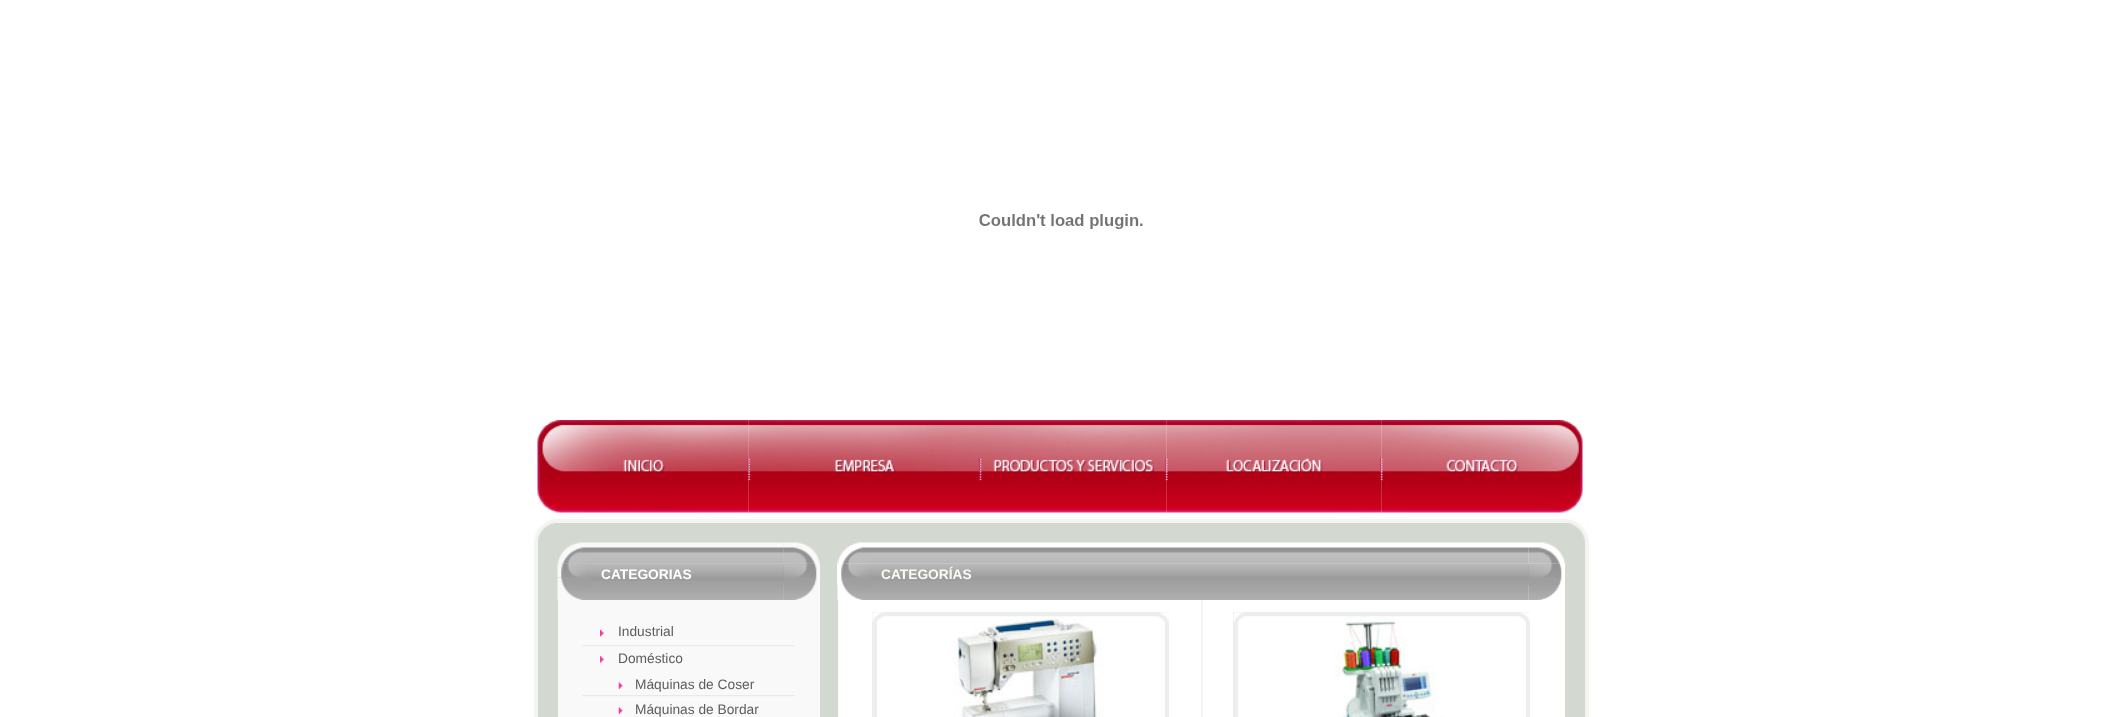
(async () => {
    const canvas = document.querySelector("canvas");
    canvas.width = 2122;
    canvas.height = 717;
    const context = canvas.getContext("2d");
    context.miterLimit = 4;
    context.fontKerning = "normal";
    function write(s, x, y, font, color) {
        context.font = font;
        context.fillStyle = color;
        context.fillText(s, x, y);
    }
    function block(x, y, w, h, color) {
        context.fillStyle = color;
        context.fillRect(x, y, w, h);
    }
    async function photo(src, x, y, w, h) {
        const img = new Image();
        img.src = src;
        await img.decode();
        context.drawImage(img, x, y, w, h);
    }

    block(0, 0, 2122, 717, "rgb(255, 255, 255)");
    await photo("media/1.png", 979, 214, 164, 15);
    await photo("media/2.png", 537, 420, 212, 93);
    await photo("media/3.png", 748, 420, 232, 93);
    await photo("media/4.png", 980, 420, 187, 93);
    await photo("media/5.png", 1166, 420, 216, 93);
    await photo("media/6.png", 1381, 420, 202, 93);
    block(538, 523, 1047, 194, "rgb(211, 216, 209)");
    block(1585, 519, 4, 198, "rgb(244, 245, 243)");
    block(553, 519, 1016, 4, "rgb(244, 245, 243)");
    block(534, 538, 4, 179, "rgb(244, 245, 243)");
    await photo("media/7.png", 534, 519, 20, 20);
    await photo("media/8.png", 1568, 519, 21, 22);
    await photo("media/9.png", 557, 542, 33, 22);
    await photo("media/10.png", 590, 542, 194, 22);
    block(816, 563, 4, 22, "rgb(248, 249, 248)");
    await photo("media/11.png", 783, 542, 37, 22);
    block(558, 577, 32, 8, "rgb(159, 159, 159)");
    await photo("media/12.png", 557, 577, 7, 8);
    await photo("media/13.png", 557, 563, 33, 15);
    block(590, 564, 194, 21, "rgb(161, 161, 161)");
    await photo("media/14.png", 590, 564, 194, 17);
    write("CATEGORIAS", 601, 579, "bold 13.75px Liberation Sans", "rgb(255, 255, 255)");
    block(784, 577, 32, 8, "rgb(159, 159, 159)");
    await photo("media/15.png", 813, 577, 4, 8);
    await photo("media/16.png", 784, 563, 36, 15);
    await photo("media/17.png", 557, 585, 33, 15);
    await photo("media/18.png", 590, 585, 194, 15);
    await photo("media/19.png", 783, 585, 37, 15);
    block(558, 600, 262, 117, "rgb(248, 249, 248)");
    await photo("media/20.png", 600, 630, 4, 7);
    write("Industrial", 618, 636, "13.75px Liberation Sans", "rgb(93, 93, 93)");
    await photo("media/21.png", 582, 645, 213, 2);
    await photo("media/22.png", 600, 656, 4, 7);
    write("Doméstico", 618, 663, "13.75px Liberation Sans", "rgb(93, 93, 93)");
    await photo("media/21.png", 582, 695, 213, 2);
    await photo("media/23.png", 618, 682, 5, 7);
    write("Máquinas de Coser", 635, 689, "13.75px Liberation Sans", "rgb(93, 93, 93)");
    await photo("media/23.png", 618, 707, 5, 7);
    write("Máquinas de Bordar", 635, 714, "13.75px Liberation Sans", "rgb(93, 93, 93)");
    block(838, 543, 727, 174, "rgb(255, 255, 255)");
    await photo("media/24.png", 837, 542, 23, 22);
    await photo("media/25.png", 1542, 542, 23, 22);
    await photo("media/26.png", 837, 542, 33, 22);
    await photo("media/27.png", 870, 542, 659, 22);
    block(870, 564, 659, 21, "rgb(161, 161, 161)");
    await photo("media/31.png", 870, 563, 659, 18);
    await photo("media/28.png", 1528, 542, 36, 22);
    block(842, 577, 28, 8, "rgb(159, 159, 159)");
    block(837, 564, 1, 21, "rgb(255, 255, 255)");
    await photo("media/29.png", 841, 577, 3, 8);
    await photo("media/30.png", 841, 563, 29, 15);
    write("CATEGORÍAS", 881, 579, "bold 13.75px Liberation Sans", "rgb(252, 250, 243)");
    block(1529, 577, 32, 8, "rgb(159, 159, 159)");
    await photo("media/32.png", 1558, 577, 4, 8);
    await photo("media/33.png", 1529, 563, 33, 15);
    await photo("media/34.png", 837, 585, 33, 15);
    await photo("media/35.png", 870, 585, 659, 15);
    await photo("media/36.png", 1528, 585, 32, 15);
    block(872, 612, 5, 105, "rgb(236, 238, 235)");
    block(1165, 612, 4, 105, "rgb(236, 238, 235)");
    block(877, 612, 288, 5, "rgb(236, 238, 235)");
    await photo("media/37.png", 872, 612, 12, 12);
    await photo("media/38.png", 1157, 612, 12, 11);
    await photo("media/39.png", 884, 616, 274, 101);
    await photo("media/40.png", 1201, 600, 2, 117);
    block(1233, 612, 5, 105, "rgb(236, 238, 235)");
    block(1526, 612, 4, 105, "rgb(236, 238, 235)");
    block(1238, 612, 288, 5, "rgb(236, 238, 235)");
    await photo("media/41.png", 1233, 612, 12, 12);
    await photo("media/42.png", 1519, 612, 11, 11);
    await photo("media/43.png", 1245, 616, 274, 101);
})();
